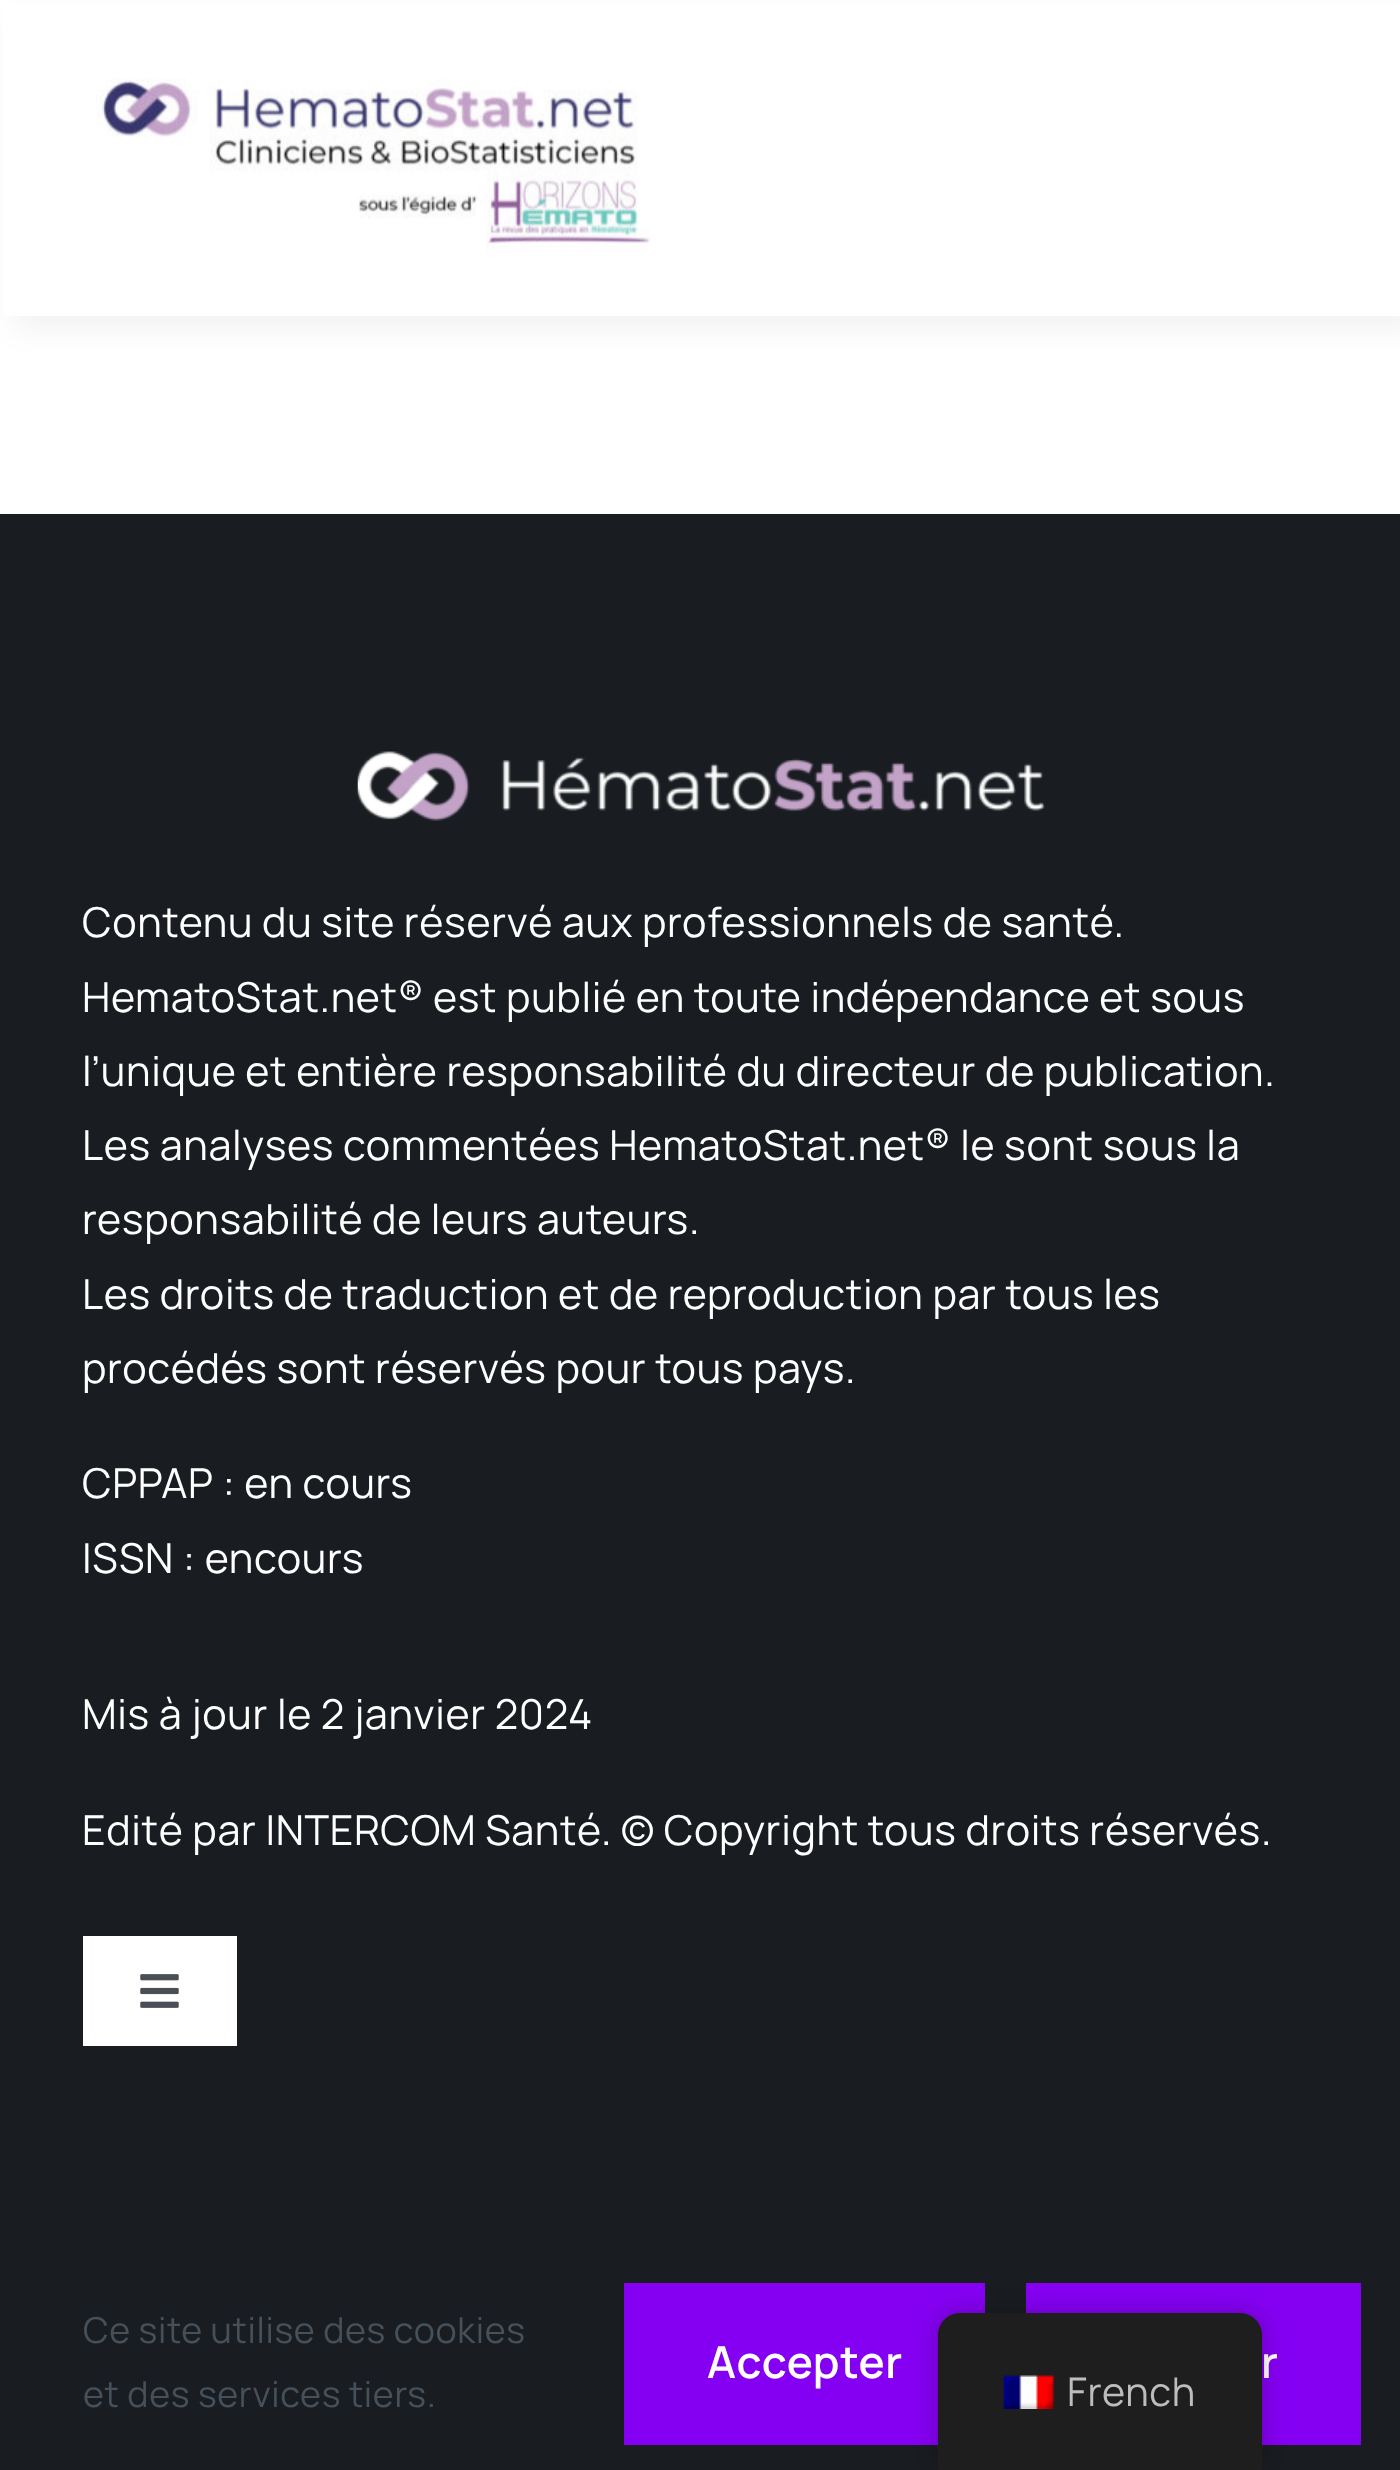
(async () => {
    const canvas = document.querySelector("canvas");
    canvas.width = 1400;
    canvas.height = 2470;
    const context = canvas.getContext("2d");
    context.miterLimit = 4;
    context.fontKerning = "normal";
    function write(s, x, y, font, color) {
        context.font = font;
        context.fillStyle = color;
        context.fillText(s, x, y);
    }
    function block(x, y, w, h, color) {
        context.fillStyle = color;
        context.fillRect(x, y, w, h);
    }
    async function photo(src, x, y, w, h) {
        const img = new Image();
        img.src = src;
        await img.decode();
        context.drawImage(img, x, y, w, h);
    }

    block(0, 0, 1400, 2470, "rgb(255, 255, 255)");
    context.fillStyle = "rgba(2, 3, 3, 0.05)";
    context.filter = "blur(14px)";
    context.beginPath();
    context.rect(14, 14, 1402, 316);
    context.fill();
    context.filter = "none";
    block(3, 3, 1397, 313, "rgb(255, 255, 255)");
    await photo("media/1.png", 96, 78, 555, 175);
    block(0, 514, 1400, 1956, "rgb(25, 29, 33)");
    await photo("media/2.png", 357, 751, 688, 70);
    context.letterSpacing = "0.65px";
    write("Contenu du site réservé aux professionnels de santé.", 82, 937, "41.25px Manrope", "rgb(255, 255, 255)");
    write("HematoStat.net® est publié en toute indépendance et sous", 82, 1012, "41.25px Manrope", "rgb(255, 255, 255)");
    write("l’unique et entière responsabilité du directeur de publication.", 82, 1086, "41.25px Manrope", "rgb(255, 255, 255)");
    write("Les analyses commentées HematoStat.net® le sont sous la", 82, 1160, "41.25px Manrope", "rgb(255, 255, 255)");
    write("responsabilité de leurs auteurs.", 82, 1234, "41.25px Manrope", "rgb(255, 255, 255)");
    write("Les droits de traduction et de reproduction par tous les", 82, 1309, "41.25px Manrope", "rgb(255, 255, 255)");
    write("procédés sont réservés pour tous pays.", 82, 1383, "41.25px Manrope", "rgb(255, 255, 255)");
    write("CPPAP : en cours", 82, 1498, "41.25px Manrope", "rgb(255, 255, 255)");
    write("ISSN : encours", 82, 1573, "41.25px Manrope", "rgb(255, 255, 255)");
    write("Mis à jour le 2 janvier 2024", 82, 1729, "41.25px Manrope", "rgb(255, 255, 255)");
    write("Edité par INTERCOM Santé. © Copyright tous droits réservés.", 82, 1845, "41.25px Manrope", "rgb(255, 255, 255)");
    block(83, 1936, 154, 110, "rgb(255, 255, 255)");
    await photo("media/3.png", 140, 1974, 39, 34);
    write("Ce site utilise des cookies", 83, 2343, "35.75px Manrope", "rgb(69, 80, 90)");
    write("et des services tiers.", 83, 2407, "35.75px Manrope", "rgb(69, 80, 90)");
    block(624, 2283, 361, 162, "rgb(133, 0, 242)");
    write("Accepter", 707, 2378, "600 44px Manrope", "rgb(255, 255, 255)");
    block(1026, 2283, 335, 162, "rgb(133, 0, 242)");
    write("r", 1261, 2378, "600 44px Manrope", "rgb(255, 255, 255)");
    context.fillStyle = "rgba(0, 0, 0, 0.25)";
    context.filter = "blur(11px)";
    context.beginPath();
    context.roundRect(938, 2313, 324, 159, 22);
    context.fill();
    context.filter = "none";
    context.fillStyle = "rgb(30, 30, 30)";
    context.beginPath();
    context.moveTo(960, 2313);
    context.lineTo(1240, 2313);
    context.bezierCurveTo(1252, 2313, 1262, 2323, 1262, 2335);
    context.lineTo(1262, 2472);
    context.lineTo(938, 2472);
    context.lineTo(938, 2335);
    context.bezierCurveTo(938, 2323, 948, 2313, 960, 2313);
    context.closePath();
    context.fill();
    await photo("media/4.png", 1003, 2375, 52, 34);
    write("French", 1067, 2406, "39.5px Manrope", "rgb(189, 189, 189)");
})();
